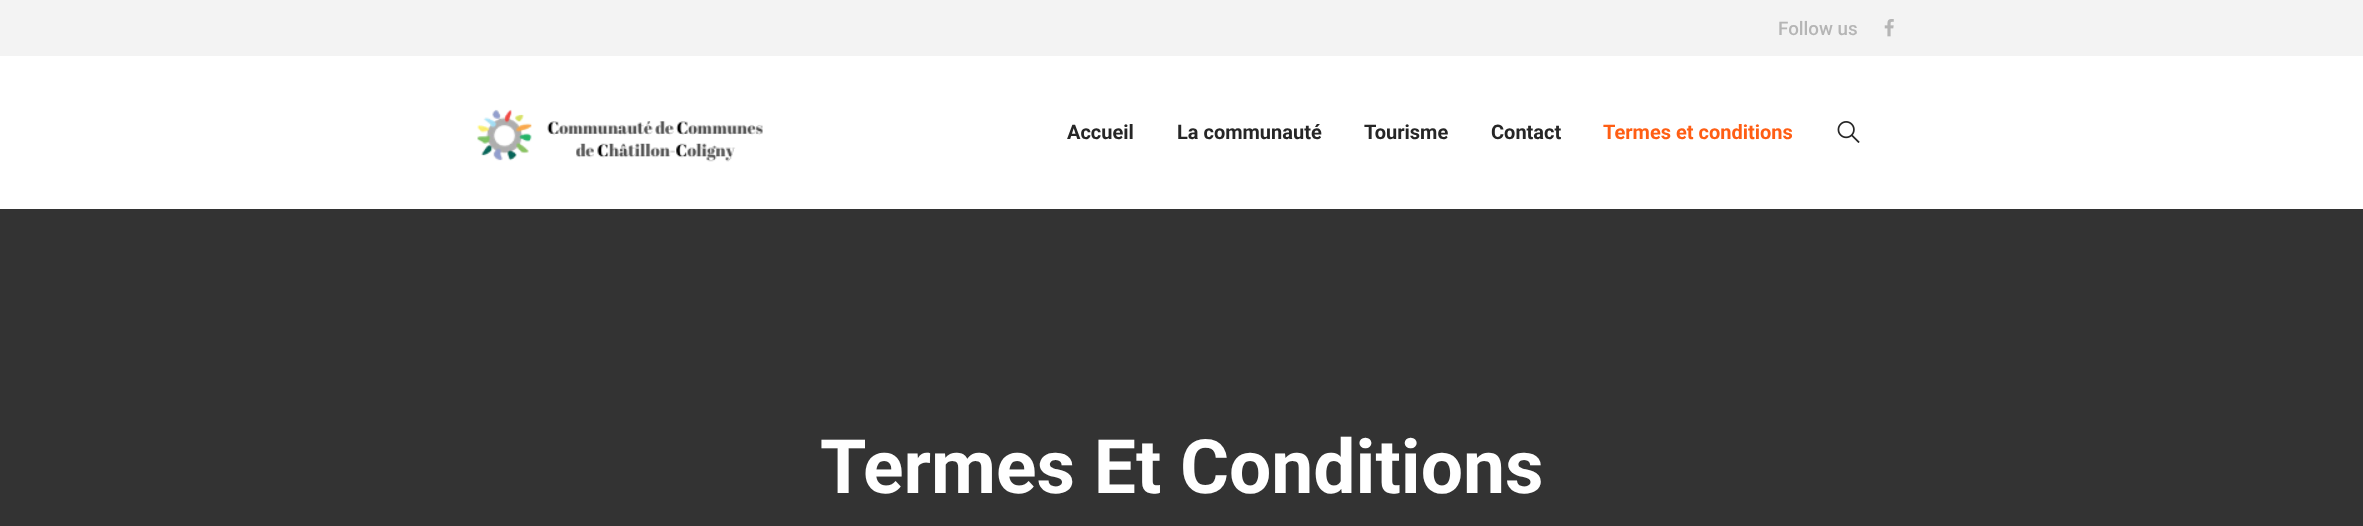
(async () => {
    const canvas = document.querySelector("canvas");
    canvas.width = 2363;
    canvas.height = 526;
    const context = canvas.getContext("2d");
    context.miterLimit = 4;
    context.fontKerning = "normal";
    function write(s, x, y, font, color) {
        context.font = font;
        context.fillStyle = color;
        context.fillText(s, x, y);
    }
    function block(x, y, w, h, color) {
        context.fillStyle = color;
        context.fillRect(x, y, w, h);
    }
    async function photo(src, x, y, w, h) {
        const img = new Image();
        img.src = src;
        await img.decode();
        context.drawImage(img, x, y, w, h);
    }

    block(0, 0, 2363, 526, "rgb(51, 51, 51)");
    block(0, 0, 2363, 56, "rgb(243, 243, 243)");
    write("Follow us", 1778, 35, "500 18.75px Roboto", "rgb(181, 181, 181)");
    await photo("media/1.png", 1884, 19, 10, 18);
    block(0, 56, 2363, 153, "rgb(255, 255, 255)");
    await photo("media/2.png", 477, 109, 286, 53);
    write("Accueil", 1067, 139, "bold 20px Roboto", "rgb(38, 38, 38)");
    write("La communauté", 1177, 139, "bold 20px Roboto", "rgb(38, 38, 38)");
    write("Tourisme", 1364, 139, "bold 20px Roboto", "rgb(38, 38, 38)");
    write("Contact", 1491, 139, "bold 20px Roboto", "rgb(38, 38, 38)");
    write("Termes et conditions", 1603, 139, "bold 20px Roboto", "rgb(255, 94, 20)");
    await photo("media/3.png", 1837, 121, 23, 22);
    write("Termes Et Conditions", 820, 493, "bold 75px Roboto", "rgb(255, 255, 255)");
})();
